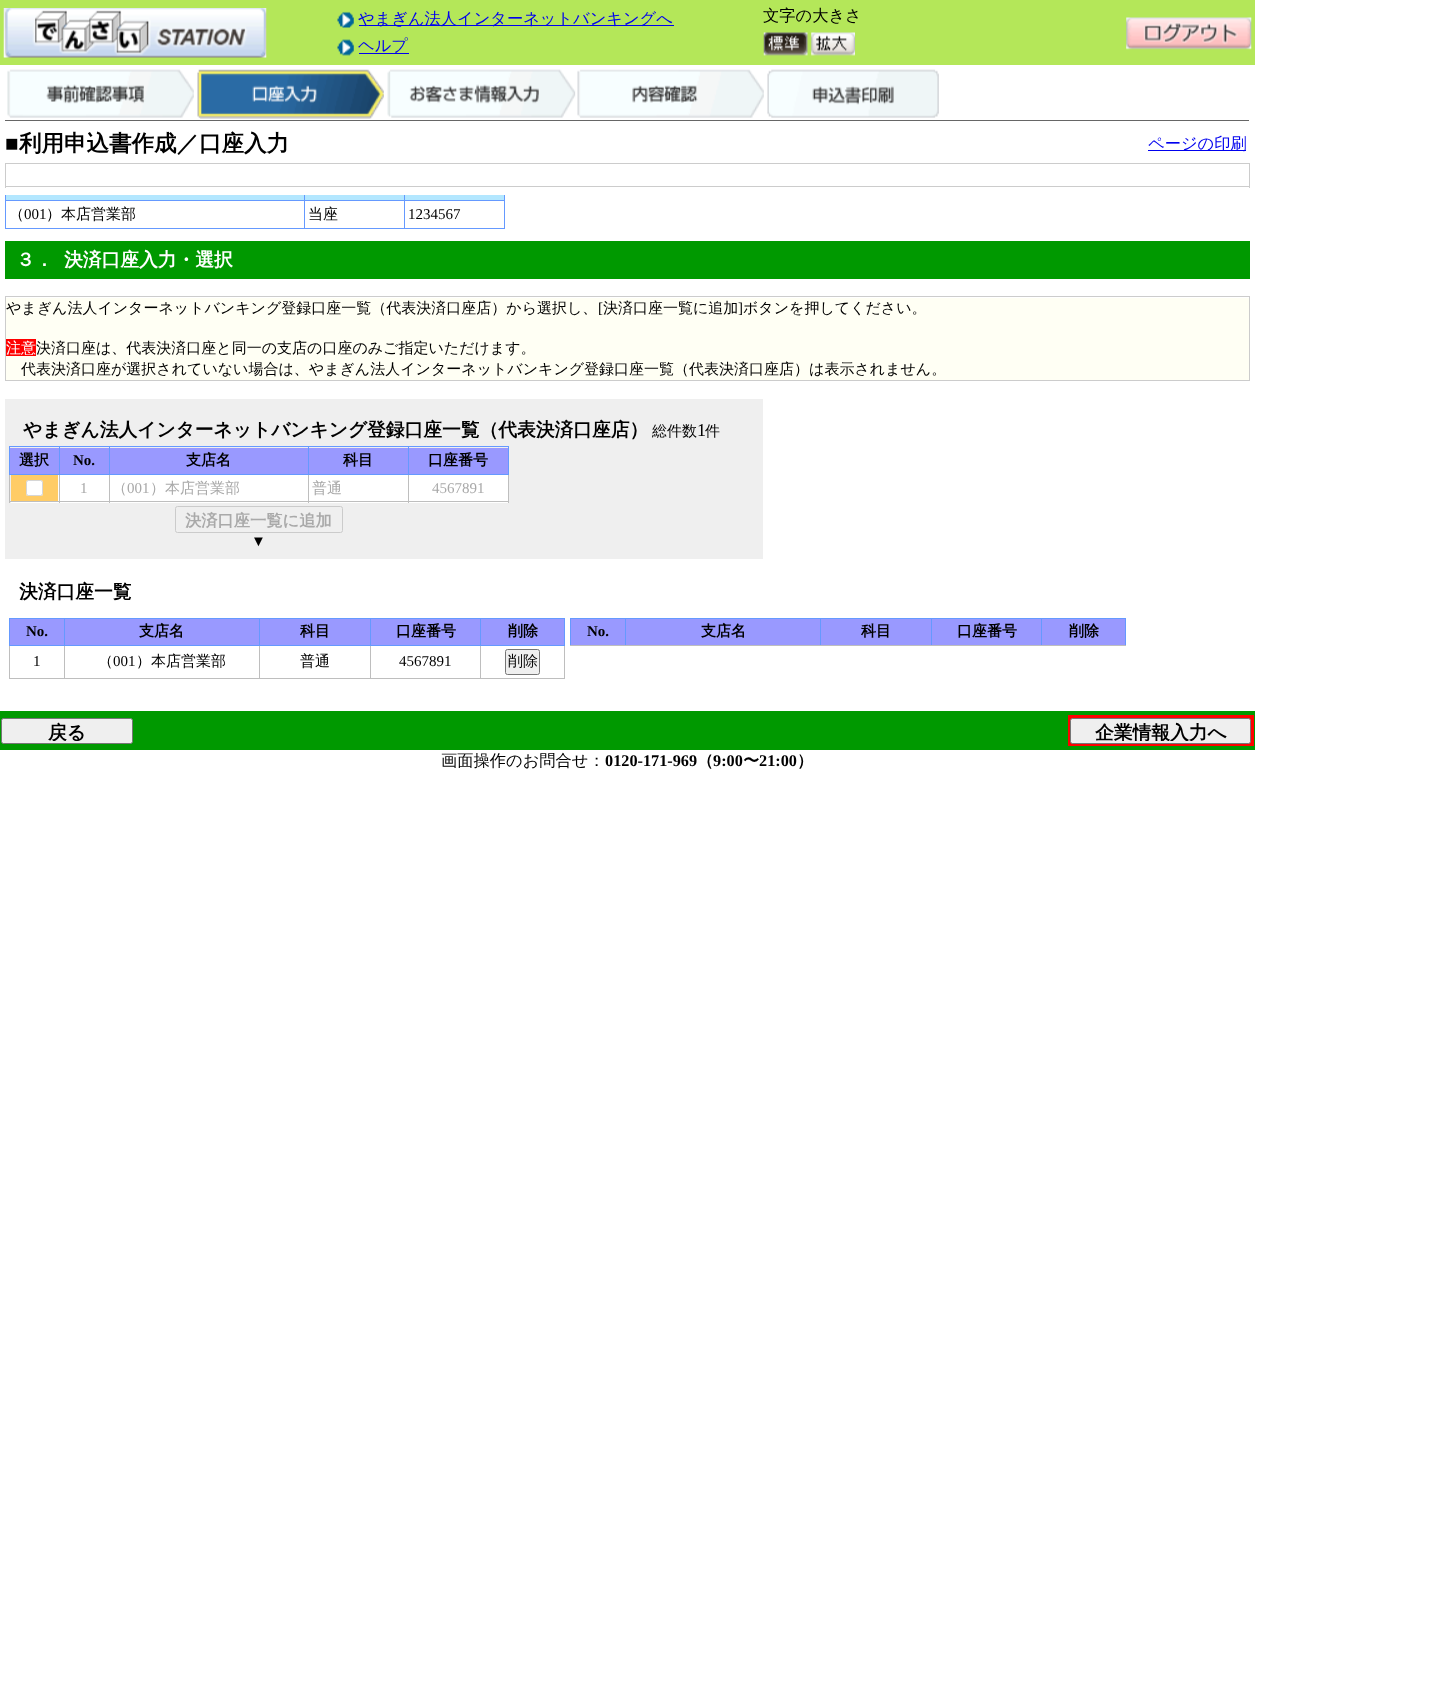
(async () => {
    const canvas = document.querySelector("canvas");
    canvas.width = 1441;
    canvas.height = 1708;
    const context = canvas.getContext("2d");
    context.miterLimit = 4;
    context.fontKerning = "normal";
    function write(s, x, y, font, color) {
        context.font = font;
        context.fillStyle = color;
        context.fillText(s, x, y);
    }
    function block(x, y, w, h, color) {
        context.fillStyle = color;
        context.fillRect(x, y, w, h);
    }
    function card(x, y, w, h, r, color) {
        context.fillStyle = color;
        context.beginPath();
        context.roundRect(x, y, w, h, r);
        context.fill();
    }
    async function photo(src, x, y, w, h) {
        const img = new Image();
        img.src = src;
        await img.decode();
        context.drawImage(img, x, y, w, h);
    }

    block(0, 0, 1441, 1708, "rgb(255, 255, 255)");
    block(0, 0, 1255, 65, "rgb(180, 231, 89)");
    await photo("media/1.png", 3, 8, 264, 50);
    await photo("media/2.png", 337, 11, 17, 17);
    block(359, 25, 315, 1, "rgb(0, 0, 238)");
    write("やまぎん法人インターネットバンキングへ", 358, 24, "500 16.25px WenQuanYi Zen Hei", "rgb(0, 0, 238)");
    await photo("media/3.png", 337, 39, 17, 17);
    write("ヘルプ", 358, 51, "500 16.25px WenQuanYi Zen Hei", "rgb(0, 0, 238)");
    block(359, 53, 50, 1, "rgb(0, 0, 238)");
    write("文字の大きさ", 763, 21, "500 16.25px WenQuanYi Zen Hei", "rgb(0, 0, 0)");
    await photo("media/4.png", 1126, 17, 126, 33);
    await photo("media/5.png", 763, 32, 45, 24);
    await photo("media/6.png", 811, 32, 44, 24);
    block(5, 120, 1244, 1, "rgb(102, 102, 102)");
    await photo("media/7.png", 7, 69, 187, 49);
    await photo("media/8.png", 197, 69, 187, 50);
    await photo("media/9.png", 387, 69, 189, 49);
    await photo("media/10.png", 577, 69, 187, 49);
    await photo("media/11.png", 767, 69, 172, 49);
    write("■", 5, 151, "bold 22.5px Liberation Serif", "rgb(0, 0, 0)");
    write("利用申込書作成／口座入力", 19, 151, "bold 22.5px WenQuanYi Zen Hei", "rgb(0, 0, 0)");
    block(1148, 150, 98, 1, "rgb(0, 0, 238)");
    write("ページの印刷", 1148, 149, "500 16.25px WenQuanYi Zen Hei", "rgb(0, 0, 238)");
    block(5, 163, 1245, 1, "rgb(204, 204, 204)");
    block(1249, 163, 1, 25, "rgb(204, 204, 204)");
    block(5, 186, 1245, 1, "rgb(204, 204, 204)");
    block(5, 163, 1, 25, "rgb(204, 204, 204)");
    block(6, 195, 499, 5, "rgb(179, 231, 255)");
    block(404, 200, 101, 1, "rgb(101, 153, 255)");
    block(504, 195, 1, 34, "rgb(101, 153, 255)");
    block(404, 228, 101, 1, "rgb(101, 153, 255)");
    block(404, 200, 1, 29, "rgb(101, 153, 255)");
    block(304, 200, 101, 1, "rgb(101, 153, 255)");
    block(304, 228, 101, 1, "rgb(101, 153, 255)");
    block(304, 200, 1, 29, "rgb(101, 153, 255)");
    block(5, 200, 300, 1, "rgb(101, 153, 255)");
    block(304, 195, 1, 6, "rgb(101, 153, 255)");
    block(404, 195, 1, 6, "rgb(101, 153, 255)");
    block(5, 228, 300, 1, "rgb(101, 153, 255)");
    block(5, 195, 1, 34, "rgb(101, 153, 255)");
    write("（", 9, 219, "500 15px WenQuanYi Zen Hei", "rgb(0, 0, 0)");
    write("001", 24, 219, "15px Liberation Serif", "rgb(0, 0, 0)");
    write("）本店営業部", 46, 219, "500 15px WenQuanYi Zen Hei", "rgb(0, 0, 0)");
    write("当座", 308, 219, "500 15px WenQuanYi Zen Hei", "rgb(0, 0, 0)");
    write("1234567", 408, 219, "15px Liberation Serif", "rgb(0, 0, 0)");
    block(5, 241, 1245, 38, "rgb(0, 153, 0)");
    write("３．", 16, 266, "bold 18.75px WenQuanYi Zen Hei", "rgb(255, 255, 255)");
    write("決済口座入力・選択", 64, 266, "bold 18.75px WenQuanYi Zen Hei", "rgb(255, 255, 255)");
    block(5, 296, 1245, 1, "rgb(204, 204, 204)");
    block(1249, 296, 1, 85, "rgb(204, 204, 204)");
    block(5, 380, 1245, 1, "rgb(204, 204, 204)");
    block(5, 296, 1, 85, "rgb(204, 204, 204)");
    block(6, 298, 1243, 82, "rgb(255, 255, 244)");
    write("やまぎん法人インターネットバンキング登録口座一覧（代表決済口座店）から選択し、", 6, 313, "500 15px WenQuanYi Zen Hei", "rgb(0, 0, 0)");
    write("[", 598, 313, "15px Liberation Serif", "rgb(0, 0, 0)");
    write("決済口座一覧に追加", 603, 313, "500 15px WenQuanYi Zen Hei", "rgb(0, 0, 0)");
    write("]", 738, 313, "15px Liberation Serif", "rgb(0, 0, 0)");
    write("ボタンを押してください。", 743, 313, "500 15px WenQuanYi Zen Hei", "rgb(0, 0, 0)");
    block(6, 339, 30, 17, "rgb(255, 0, 0)");
    write("注意", 6, 353, "500 15px WenQuanYi Zen Hei", "rgb(255, 255, 255)");
    write("決済口座は、代表決済口座と同一の支店の口座のみご指定いただけます。", 36, 353, "500 15px WenQuanYi Zen Hei", "rgb(0, 0, 0)");
    write("代表決済口座が選択されていない場合は、やまぎん法人インターネットバンキング登録口座一覧（代表決済口座店）は表示されません。", 21, 374, "500 15px WenQuanYi Zen Hei", "rgb(0, 0, 0)");
    block(5, 399, 758, 160, "rgb(239, 239, 239)");
    write("やまぎん法人インターネットバンキング登録口座一覧（代表決済口座店）", 23, 436, "bold 18.75px WenQuanYi Zen Hei", "rgb(0, 0, 0)");
    write("総件数", 652, 436, "500 15px WenQuanYi Zen Hei", "rgb(0, 0, 0)");
    write("1", 697, 436, "18px Liberation Serif", "rgb(0, 0, 0)");
    write("件", 705, 436, "500 15px WenQuanYi Zen Hei", "rgb(0, 0, 0)");
    block(10, 448, 49, 26, "rgb(153, 153, 255)");
    block(408, 446, 101, 1, "rgb(101, 153, 255)");
    block(508, 446, 1, 29, "rgb(101, 153, 255)");
    block(408, 474, 101, 1, "rgb(101, 153, 255)");
    block(408, 446, 1, 29, "rgb(101, 153, 255)");
    block(308, 446, 101, 1, "rgb(101, 153, 255)");
    block(308, 474, 101, 1, "rgb(101, 153, 255)");
    block(308, 446, 1, 29, "rgb(101, 153, 255)");
    block(109, 446, 200, 1, "rgb(101, 153, 255)");
    block(109, 474, 200, 1, "rgb(101, 153, 255)");
    block(109, 446, 1, 29, "rgb(101, 153, 255)");
    block(59, 446, 51, 1, "rgb(101, 153, 255)");
    block(59, 474, 51, 1, "rgb(101, 153, 255)");
    block(59, 446, 1, 29, "rgb(101, 153, 255)");
    block(9, 446, 51, 1, "rgb(101, 153, 255)");
    block(9, 474, 51, 1, "rgb(101, 153, 255)");
    block(9, 446, 1, 29, "rgb(101, 153, 255)");
    write("選択", 19, 465, "bold 15px WenQuanYi Zen Hei", "rgb(0, 0, 0)");
    block(60, 448, 49, 26, "rgb(153, 153, 255)");
    write("No.", 73, 465, "bold 15px Liberation Serif", "rgb(0, 0, 0)");
    block(110, 448, 198, 26, "rgb(153, 153, 255)");
    write("支店名", 186, 465, "bold 15px WenQuanYi Zen Hei", "rgb(0, 0, 0)");
    block(309, 448, 99, 26, "rgb(153, 153, 255)");
    write("科目", 343, 465, "bold 15px WenQuanYi Zen Hei", "rgb(0, 0, 0)");
    block(409, 448, 99, 26, "rgb(153, 153, 255)");
    write("口座番号", 428, 465, "bold 15px WenQuanYi Zen Hei", "rgb(0, 0, 0)");
    block(508, 475, 1, 28, "rgb(190, 190, 190)");
    block(11, 475, 497, 28, "rgb(255, 255, 255)");
    block(9, 501, 500, 1, "rgb(190, 190, 190)");
    block(9, 475, 1, 28, "rgb(190, 190, 190)");
    block(11, 475, 47, 26, "rgb(255, 204, 102)");
    card(26, 480, 17, 16, 2.5, "rgb(255, 255, 255)");
    context.beginPath();
    context.roundRect(26.5, 480.5, 16, 15, 2);
    context.strokeStyle = "rgba(118, 118, 118, 0.3)";
    context.stroke();
    block(59, 475, 1, 28, "rgb(190, 190, 190)");
    write("1", 80, 493, "15px Liberation Serif", "rgb(169, 169, 169)");
    block(109, 475, 1, 28, "rgb(190, 190, 190)");
    write("（", 112, 493, "500 15px WenQuanYi Zen Hei", "rgb(169, 169, 169)");
    write("001", 127, 493, "15px Liberation Serif", "rgb(169, 169, 169)");
    write("）本店営業部", 150, 493, "500 15px WenQuanYi Zen Hei", "rgb(169, 169, 169)");
    block(308, 475, 1, 28, "rgb(190, 190, 190)");
    write("普通", 312, 493, "500 15px WenQuanYi Zen Hei", "rgb(169, 169, 169)");
    block(408, 475, 1, 28, "rgb(190, 190, 190)");
    write("4567891", 432, 493, "15px Liberation Serif", "rgb(169, 169, 169)");
    context.beginPath();
    context.roundRect(175.5, 506.5, 167, 26, 2);
    context.strokeStyle = "rgb(203, 203, 203)";
    context.stroke();
    write("決済口座一覧に追加", 185, 526, "bold 16.25px WenQuanYi Zen Hei", "rgb(169, 169, 169)");
    write("▼", 251, 546, "15px Liberation Serif", "rgb(0, 0, 0)");
    write("決済口座一覧", 19, 598, "bold 18.75px WenQuanYi Zen Hei", "rgb(0, 0, 0)");
    block(10, 619, 54, 26, "rgb(153, 153, 255)");
    block(480, 618, 85, 1, "rgb(101, 153, 255)");
    block(564, 618, 1, 28, "rgb(101, 153, 255)");
    block(480, 645, 85, 1, "rgb(101, 153, 255)");
    block(480, 618, 1, 28, "rgb(101, 153, 255)");
    block(370, 618, 111, 1, "rgb(101, 153, 255)");
    block(370, 645, 111, 1, "rgb(101, 153, 255)");
    block(370, 618, 1, 28, "rgb(101, 153, 255)");
    block(259, 618, 112, 1, "rgb(101, 153, 255)");
    block(259, 645, 112, 1, "rgb(101, 153, 255)");
    block(259, 618, 1, 28, "rgb(101, 153, 255)");
    block(64, 618, 196, 1, "rgb(101, 153, 255)");
    block(64, 645, 196, 1, "rgb(101, 153, 255)");
    block(64, 618, 1, 28, "rgb(101, 153, 255)");
    block(9, 618, 56, 1, "rgb(101, 153, 255)");
    block(9, 645, 56, 1, "rgb(101, 153, 255)");
    block(9, 618, 1, 28, "rgb(101, 153, 255)");
    write("No.", 26, 636, "bold 15px Liberation Serif", "rgb(0, 0, 0)");
    block(65, 619, 194, 26, "rgb(153, 153, 255)");
    write("支店名", 139, 636, "bold 15px WenQuanYi Zen Hei", "rgb(0, 0, 0)");
    block(260, 619, 110, 26, "rgb(153, 153, 255)");
    write("科目", 300, 636, "bold 15px WenQuanYi Zen Hei", "rgb(0, 0, 0)");
    block(371, 619, 109, 26, "rgb(153, 153, 255)");
    write("口座番号", 396, 636, "bold 15px WenQuanYi Zen Hei", "rgb(0, 0, 0)");
    block(481, 619, 83, 26, "rgb(153, 153, 255)");
    write("削除", 508, 636, "bold 15px WenQuanYi Zen Hei", "rgb(0, 0, 0)");
    block(564, 646, 1, 33, "rgb(190, 190, 190)");
    block(9, 678, 556, 1, "rgb(190, 190, 190)");
    block(9, 646, 1, 33, "rgb(190, 190, 190)");
    write("1", 33, 666, "15px Liberation Serif", "rgb(0, 0, 0)");
    block(64, 646, 1, 33, "rgb(190, 190, 190)");
    write("（", 98, 666, "500 15px WenQuanYi Zen Hei", "rgb(0, 0, 0)");
    write("001", 113, 666, "15px Liberation Serif", "rgb(0, 0, 0)");
    write("）本店営業部", 136, 666, "500 15px WenQuanYi Zen Hei", "rgb(0, 0, 0)");
    block(259, 646, 1, 33, "rgb(190, 190, 190)");
    write("普通", 300, 666, "500 15px WenQuanYi Zen Hei", "rgb(0, 0, 0)");
    block(370, 646, 1, 33, "rgb(190, 190, 190)");
    write("4567891", 399, 666, "15px Liberation Serif", "rgb(0, 0, 0)");
    block(480, 646, 1, 33, "rgb(190, 190, 190)");
    context.fillStyle = "rgb(239, 239, 239)";
    context.beginPath();
    context.roundRect(505.5, 649.5, 34, 25, 2);
    context.fill();
    context.strokeStyle = "rgb(118, 118, 118)";
    context.stroke();
    write("削除", 508, 666, "500 15px WenQuanYi Zen Hei", "rgb(0, 0, 0)");
    block(571, 619, 54, 26, "rgb(153, 153, 255)");
    block(1041, 618, 85, 1, "rgb(101, 153, 255)");
    block(932, 619, 193, 26, "rgb(153, 153, 255)");
    block(1041, 618, 1, 28, "rgb(101, 153, 255)");
    block(931, 618, 112, 1, "rgb(101, 153, 255)");
    block(931, 618, 1, 28, "rgb(101, 153, 255)");
    block(820, 618, 113, 1, "rgb(101, 153, 255)");
    block(820, 618, 1, 28, "rgb(101, 153, 255)");
    block(625, 618, 196, 1, "rgb(101, 153, 255)");
    block(625, 618, 1, 28, "rgb(101, 153, 255)");
    block(570, 618, 56, 1, "rgb(101, 153, 255)");
    block(570, 618, 1, 28, "rgb(101, 153, 255)");
    write("No.", 587, 636, "bold 15px Liberation Serif", "rgb(0, 0, 0)");
    block(626, 619, 194, 26, "rgb(153, 153, 255)");
    write("支店名", 701, 636, "bold 15px WenQuanYi Zen Hei", "rgb(0, 0, 0)");
    block(821, 619, 110, 26, "rgb(153, 153, 255)");
    write("科目", 861, 636, "bold 15px WenQuanYi Zen Hei", "rgb(0, 0, 0)");
    write("口座番号", 957, 636, "bold 15px WenQuanYi Zen Hei", "rgb(0, 0, 0)");
    block(1125, 618, 1, 28, "rgb(101, 153, 255)");
    write("削除", 1069, 636, "bold 15px WenQuanYi Zen Hei", "rgb(0, 0, 0)");
    block(570, 645, 556, 1, "rgb(190, 190, 190)");
    block(0, 711, 1255, 39, "rgb(0, 153, 0)");
    context.fillStyle = "rgb(239, 239, 239)";
    context.beginPath();
    context.roundRect(1.5, 718.5, 131, 25, 2);
    context.fill();
    context.stroke();
    context.save();
    context.beginPath();
    context.rect(4, 720, 126, 21);
    context.clip();
    write("戻る", 48, 739, "bold 18.75px WenQuanYi Zen Hei", "rgb(0, 0, 0)");
    context.restore();
    block(1068, 715, 186, 31, "rgb(255, 0, 0)");
    context.fillStyle = "rgb(239, 239, 239)";
    context.beginPath();
    context.roundRect(1070.5, 718.5, 180, 25, 2);
    context.fill();
    context.stroke();
    context.save();
    context.beginPath();
    context.rect(1073, 720, 176, 21);
    context.clip();
    write("企業情報入力へ", 1095, 739, "bold 18.75px WenQuanYi Zen Hei", "rgb(0, 0, 0)");
    context.restore();
    write("画面操作のお問合せ：", 441, 766, "500 16.25px WenQuanYi Zen Hei", "rgb(0, 0, 0)");
    write("0120-171-969", 605, 766, "bold 16.25px Liberation Serif", "rgb(0, 0, 0)");
    write("（", 697, 766, "bold 16.25px WenQuanYi Zen Hei", "rgb(0, 0, 0)");
    write("9:00", 713, 766, "bold 16.25px Liberation Serif", "rgb(0, 0, 0)");
    write("〜", 743, 766, "bold 16.25px WenQuanYi Zen Hei", "rgb(0, 0, 0)");
    write("21:00", 759, 766, "bold 16.25px Liberation Serif", "rgb(0, 0, 0)");
    write("）", 797, 766, "bold 16.25px WenQuanYi Zen Hei", "rgb(0, 0, 0)");
})();
